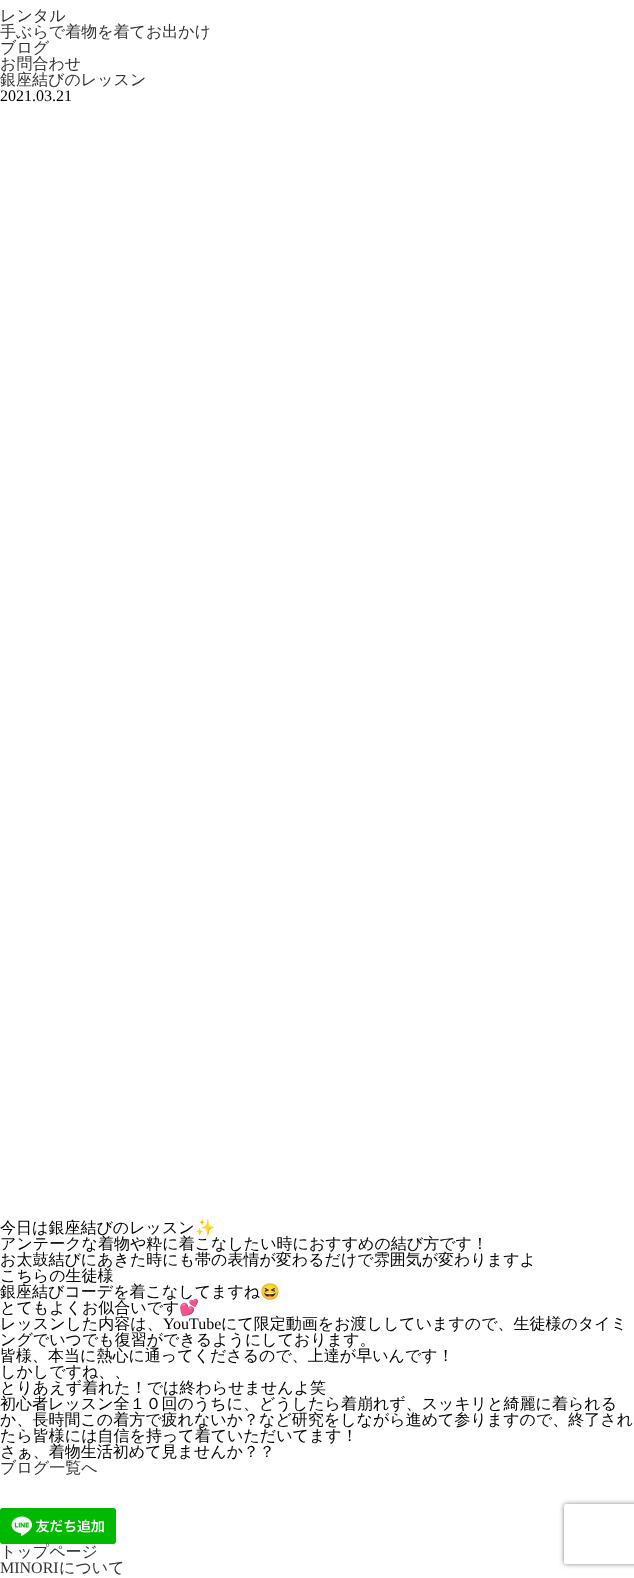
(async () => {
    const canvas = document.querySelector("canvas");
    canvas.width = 634;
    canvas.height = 1578;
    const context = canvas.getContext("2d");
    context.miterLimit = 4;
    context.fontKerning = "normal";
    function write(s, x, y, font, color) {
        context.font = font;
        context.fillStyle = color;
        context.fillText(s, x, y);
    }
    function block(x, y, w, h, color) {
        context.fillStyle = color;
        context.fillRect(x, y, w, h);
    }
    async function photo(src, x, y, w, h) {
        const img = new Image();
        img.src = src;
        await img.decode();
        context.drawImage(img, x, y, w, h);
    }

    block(0, 0, 634, 1578, "rgb(255, 255, 255)");
    write("レンタル", 0, 21, "500 16px WenQuanYi Zen Hei", "rgb(51, 51, 51)");
    write("手ぶらで着物を着てお出かけ", 0, 37, "500 16px WenQuanYi Zen Hei", "rgb(51, 51, 51)");
    write("ブログ", 0, 53, "500 16px WenQuanYi Zen Hei", "rgb(51, 51, 51)");
    write("お問合わせ", 0, 69, "500 16px WenQuanYi Zen Hei", "rgb(51, 51, 51)");
    write("銀座結びのレッスン", 0, 85, "500 16px WenQuanYi Zen Hei", "rgb(51, 51, 51)");
    write("2021.03.21", 0, 101, "16px Liberation Serif", "rgb(0, 0, 0)");
    write("今日は銀座結びのレッスン", 0, 1233, "500 16px WenQuanYi Zen Hei", "rgb(0, 0, 0)");
    write("✨", 195, 1233, "16px Noto Color Emoji", "rgb(0, 0, 0)");
    write("アンテークな着物や粋に着こなしたい時におすすめの結び方です！", 0, 1249, "500 16px WenQuanYi Zen Hei", "rgb(0, 0, 0)");
    write("お太鼓結びにあきた時にも帯の表情が変わるだけで雰囲気が変わりますよ", 0, 1265, "500 16px WenQuanYi Zen Hei", "rgb(0, 0, 0)");
    write("こちらの生徒様", 0, 1281, "500 16px WenQuanYi Zen Hei", "rgb(0, 0, 0)");
    write("銀座結びコーデを着こなしてますね", 0, 1297, "500 16px WenQuanYi Zen Hei", "rgb(0, 0, 0)");
    write("😆", 260, 1297, "16px Noto Color Emoji", "rgb(0, 0, 0)");
    write("とてもよくお似合いです", 0, 1313, "500 16px WenQuanYi Zen Hei", "rgb(0, 0, 0)");
    write("💕", 179, 1313, "16px Noto Color Emoji", "rgb(0, 0, 0)");
    write("レッスンした内容は、", 0, 1329, "500 16px WenQuanYi Zen Hei", "rgb(0, 0, 0)");
    write("YouTube", 163, 1329, "16px Liberation Serif", "rgb(0, 0, 0)");
    write("にて限定動画をお渡ししていますので、生徒様のタイミ", 221, 1329, "500 16px WenQuanYi Zen Hei", "rgb(0, 0, 0)");
    write("ングでいつでも復習ができるようにしております。", 0, 1345, "500 16px WenQuanYi Zen Hei", "rgb(0, 0, 0)");
    write("皆様、本当に熱心に通ってくださるので、上達が早いんです！", 0, 1361, "500 16px WenQuanYi Zen Hei", "rgb(0, 0, 0)");
    write("しかしですね、、", 0, 1377, "500 16px WenQuanYi Zen Hei", "rgb(0, 0, 0)");
    write("とりあえず着れた！では終わらせませんよ笑", 0, 1393, "500 16px WenQuanYi Zen Hei", "rgb(0, 0, 0)");
    write("初心者レッスン全１０回のうちに、どうしたら着崩れず、スッキリと綺麗に着られる", 0, 1409, "500 16px WenQuanYi Zen Hei", "rgb(0, 0, 0)");
    write("か、長時間この着方で疲れないか？など研究をしながら進めて参りますので、終了され", 0, 1425, "500 16px WenQuanYi Zen Hei", "rgb(0, 0, 0)");
    write("たら皆様には自信を持って着ていただいてます！", 0, 1441, "500 16px WenQuanYi Zen Hei", "rgb(0, 0, 0)");
    write("さぁ、着物生活初めて見ませんか？？", 0, 1457, "500 16px WenQuanYi Zen Hei", "rgb(0, 0, 0)");
    write("ブログ一覧へ", 0, 1473, "500 16px WenQuanYi Zen Hei", "rgb(51, 51, 51)");
    await photo("media/1.png", 0, 1508, 116, 36);
    write("トップページ", 0, 1557, "500 16px WenQuanYi Zen Hei", "rgb(51, 51, 51)");
    write("MINORI", 0, 1573, "16px Liberation Serif", "rgb(51, 51, 51)");
    write("について", 59, 1573, "500 16px WenQuanYi Zen Hei", "rgb(51, 51, 51)");
    context.save();
    context.beginPath();
    context.moveTo(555, 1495);
    context.lineTo(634, 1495);
    context.lineTo(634, 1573);
    context.lineTo(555, 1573);
    context.closePath();
    context.moveTo(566, 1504);
    context.lineTo(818, 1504);
    context.bezierCurveTo(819, 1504, 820, 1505, 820, 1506);
    context.lineTo(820, 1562);
    context.bezierCurveTo(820, 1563, 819, 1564, 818, 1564);
    context.lineTo(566, 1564);
    context.bezierCurveTo(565, 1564, 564, 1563, 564, 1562);
    context.lineTo(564, 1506);
    context.bezierCurveTo(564, 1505, 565, 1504, 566, 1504);
    context.closePath();
    context.clip("evenodd");
    context.fillStyle = "rgb(128, 128, 128)";
    context.filter = "blur(2.5px)";
    context.beginPath();
    context.roundRect(564, 1504, 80, 60, 2);
    context.fill();
    context.filter = "none";
    context.restore();
})();
